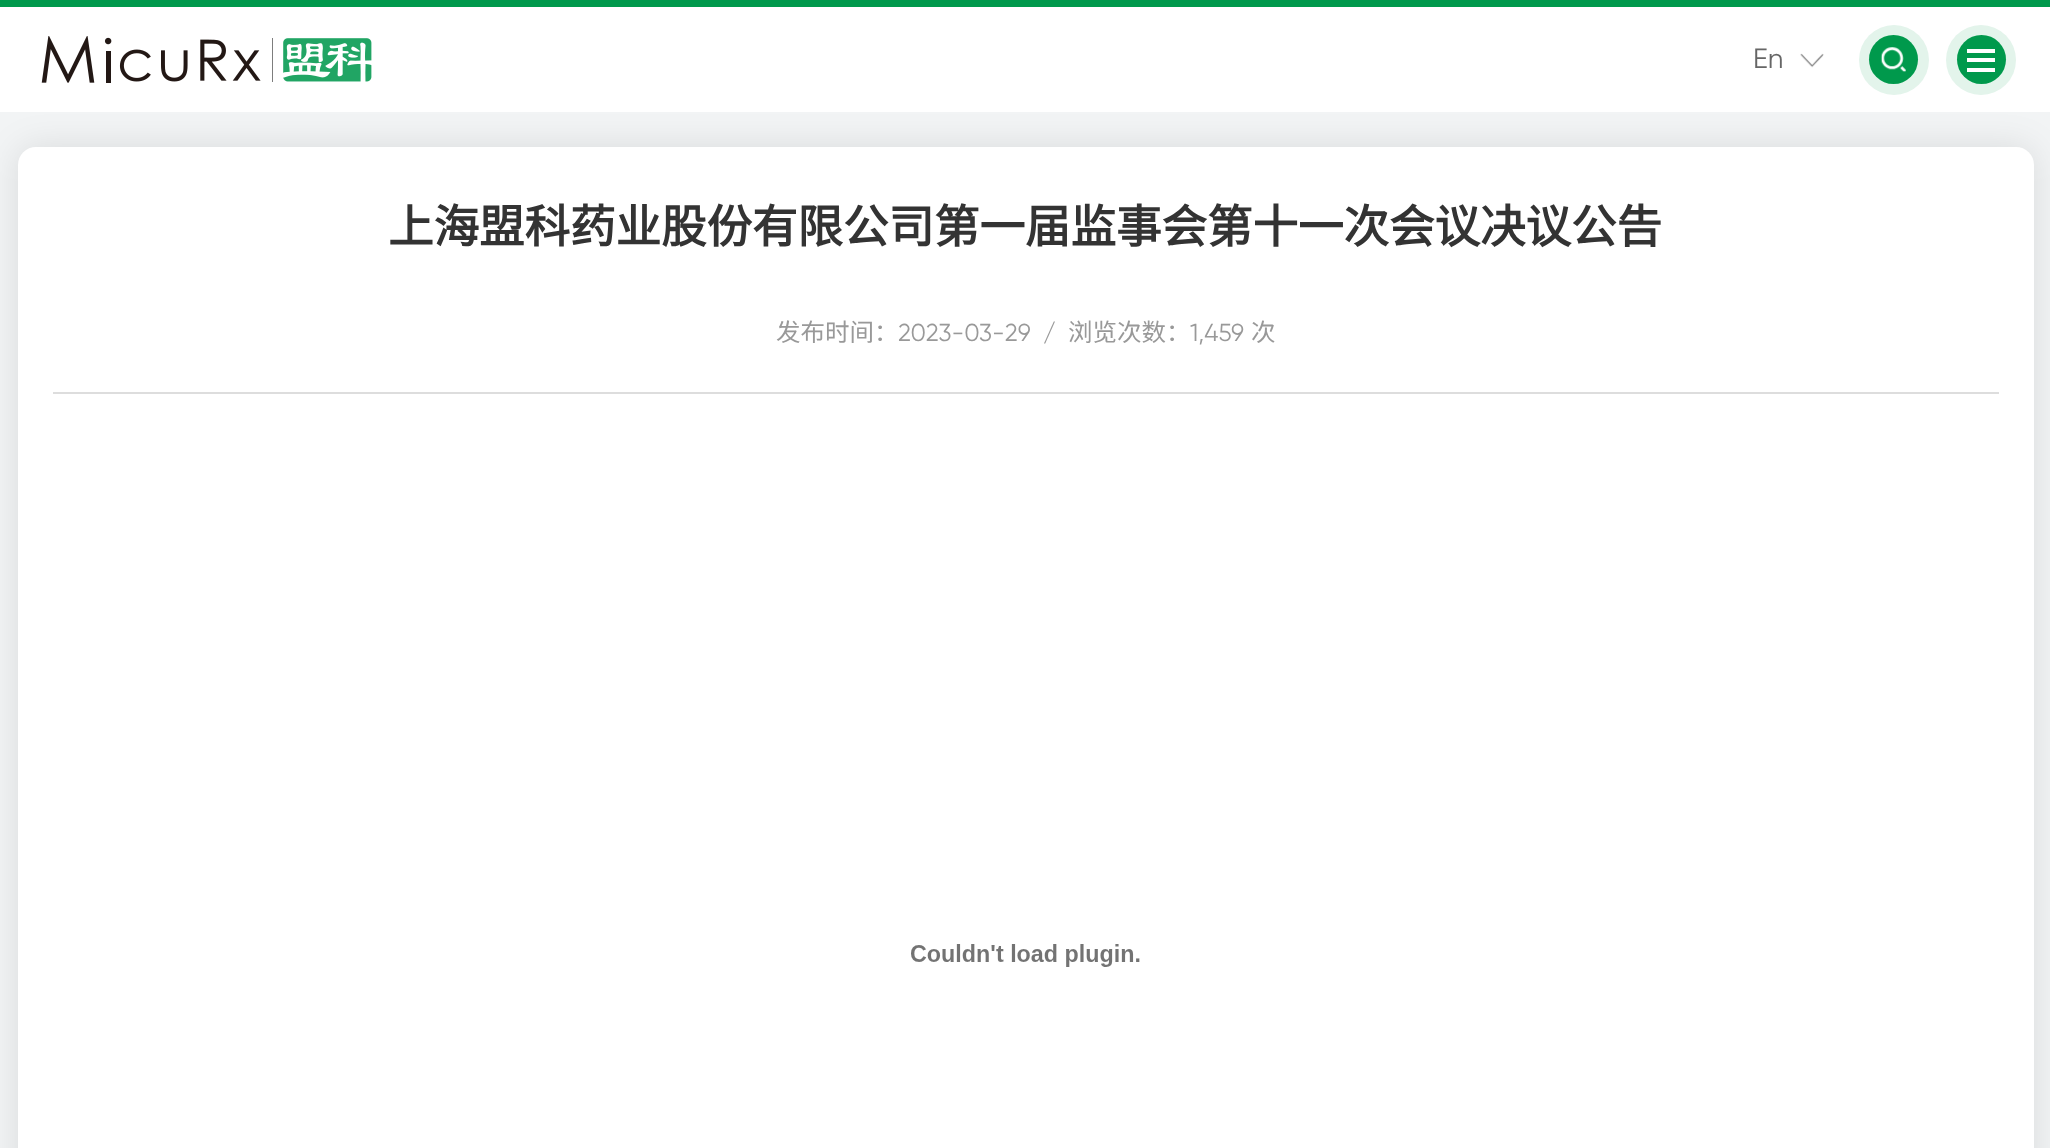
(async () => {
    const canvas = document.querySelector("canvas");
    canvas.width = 2050;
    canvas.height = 1148;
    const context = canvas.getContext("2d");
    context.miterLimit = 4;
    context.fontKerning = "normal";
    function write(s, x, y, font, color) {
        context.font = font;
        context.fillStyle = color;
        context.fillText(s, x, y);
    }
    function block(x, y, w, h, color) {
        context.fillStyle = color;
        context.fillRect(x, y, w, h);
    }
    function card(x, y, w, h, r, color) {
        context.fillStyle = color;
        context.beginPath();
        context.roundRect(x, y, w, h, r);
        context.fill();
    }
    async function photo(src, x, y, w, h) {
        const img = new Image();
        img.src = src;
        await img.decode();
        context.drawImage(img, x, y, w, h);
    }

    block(0, 0, 2050, 1148, "rgb(242, 244, 245)");
    context.fillStyle = "rgba(0, 0, 0, 0.1)";
    context.filter = "blur(17.5px)";
    context.beginPath();
    context.roundRect(18, 147, 2016, 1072, 18);
    context.fill();
    context.filter = "none";
    block(0, 7, 2050, 105, "rgb(255, 255, 255)");
    block(0, 0, 2050, 7, "rgb(0, 153, 76)");
    await photo("media/1.png", 41, 36, 331, 47);
    write("En", 1753, 68, "28px Gilroy", "rgb(102, 102, 102)");
    await photo("media/2.png", 1800, 53, 24, 15);
    context.fillStyle = "rgb(227, 244, 235)";
    context.beginPath();
    context.arc(1894, 60, 35, 0, Math.PI * 2);
    context.fill();
    context.fillStyle = "rgb(0, 153, 76)";
    context.beginPath();
    context.arc(1893.5, 59.5, 24.5, 0, Math.PI * 2);
    context.fill();
    await photo("media/3.png", 1880, 47, 26, 25);
    context.fillStyle = "rgb(227, 244, 235)";
    context.beginPath();
    context.arc(1981, 60, 35, 0, Math.PI * 2);
    context.fill();
    context.fillStyle = "rgb(0, 153, 76)";
    context.beginPath();
    context.arc(1981.5, 59.5, 24.5, 0, Math.PI * 2);
    context.fill();
    block(1967, 49, 28, 4, "rgb(255, 255, 255)");
    block(1967, 58, 28, 4, "rgb(255, 255, 255)");
    block(1967, 68, 28, 4, "rgb(255, 255, 255)");
    card(18, 147, 2016, 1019, 18, "rgb(255, 255, 255)");
    write("上海盟科药业股份有限公司第一届监事会第十一次会议决议公告", 388, 243, "bold 45.5px Noto Sans CJK SC", "rgb(51, 51, 51)");
    write("发布时间：", 776, 341, "24.5px Noto Sans CJK SC", "rgb(153, 153, 153)");
    write("2023-03-29", 898, 341, "24.5px Gilroy", "rgb(153, 153, 153)");
    write("/", 1043, 341, "24.5px Gilroy", "rgb(153, 153, 153)");
    write("浏览次数：", 1068, 341, "24.5px Noto Sans CJK SC", "rgb(153, 153, 153)");
    write("1,459", 1190, 341, "24.5px Gilroy", "rgb(153, 153, 153)");
    write("次", 1251, 341, "24.5px Noto Sans CJK SC", "rgb(153, 153, 153)");
    block(53, 392, 1946, 2, "rgb(221, 221, 221)");
    await photo("media/4.png", 911, 944, 229, 23);
})();
